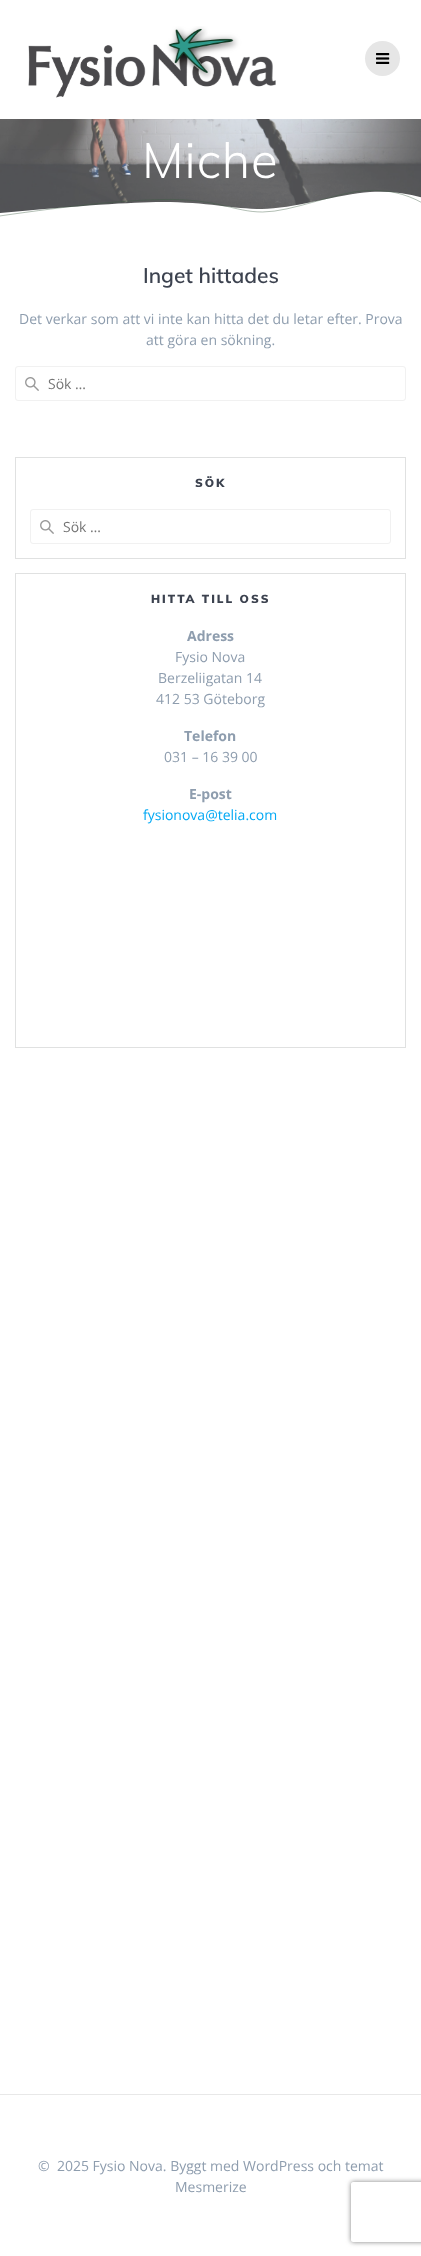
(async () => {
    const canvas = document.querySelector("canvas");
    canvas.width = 421;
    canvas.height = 2256;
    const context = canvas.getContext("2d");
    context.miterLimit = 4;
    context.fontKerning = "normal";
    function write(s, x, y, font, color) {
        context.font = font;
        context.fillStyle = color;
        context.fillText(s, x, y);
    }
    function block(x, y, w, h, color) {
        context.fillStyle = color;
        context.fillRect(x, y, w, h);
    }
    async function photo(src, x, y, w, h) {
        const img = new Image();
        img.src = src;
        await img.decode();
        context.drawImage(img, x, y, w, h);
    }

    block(0, 0, 421, 2256, "rgb(255, 255, 255)");
    await photo("media/1.png", 28, 26, 248, 72);
    context.fillStyle = "rgb(230, 230, 230)";
    context.beginPath();
    context.arc(382.5, 58.5, 17.5, 0, Math.PI * 2);
    context.fill();
    await photo("media/2.png", 376, 53, 14, 11);
    await photo("media/3.png", 0, 119, 421, 94);
    context.letterSpacing = "1px";
    write("Miche", 142, 178, "300 49px Muli", "rgb(255, 255, 255)");
    context.beginPath();
    context.moveTo(-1, 213);
    context.bezierCurveTo(78, 206, 132, 202, 162, 202);
    context.bezierCurveTo(207, 202, 233, 209, 262, 209);
    context.bezierCurveTo(291, 209, 340, 194, 370, 192);
    context.bezierCurveTo(390, 191, 408, 193, 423, 198);
    context.lineTo(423, 220);
    context.lineTo(-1, 220);
    context.closePath();
    context.fill();
    context.beginPath();
    context.moveTo(-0.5, 216);
    context.bezierCurveTo(72, 205.5, 126.5, 200, 163, 199.5);
    context.bezierCurveTo(218, 198.5, 233.5, 212, 262.5, 212);
    context.bezierCurveTo(292, 212, 336.5, 192, 367, 190.5);
    context.bezierCurveTo(387, 189.5, 405.5, 193.5, 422.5, 203);
    context.strokeStyle = "rgb(60, 92, 65)";
    context.lineWidth = 0.4;
    context.stroke();
    context.letterSpacing = "0px";
    write("Inget hittades", 143, 283, "600 21px Muli", "rgb(60, 66, 79)");
    write("Det verkar som att vi inte kan hitta det du letar efter. Prova", 19, 324, "14px Open Sans", "rgb(142, 157, 174)");
    write("att göra en sökning.", 146, 345, "14px Open Sans", "rgb(142, 157, 174)");
    await photo("media/4.png", 25, 377, 14, 14);
    context.beginPath();
    context.roundRect(15.5, 366.5, 390, 34, 2.5);
    context.strokeStyle = "rgb(241, 241, 241)";
    context.lineWidth = 1;
    context.stroke();
    write("Sök …", 48, 389, "14px Open Sans", "rgb(117, 117, 117)");
    context.strokeStyle = "rgb(224, 225, 225)";
    context.strokeRect(15.5, 457.5, 390, 101);
    context.letterSpacing = "2px";
    write("SÖK", 195, 487, "900 11.6px Muli", "rgb(60, 66, 79)");
    await photo("media/4.png", 40, 520, 14, 14);
    context.beginPath();
    context.roundRect(30.5, 509.5, 360, 34, 2.5);
    context.strokeStyle = "rgb(241, 241, 241)";
    context.stroke();
    context.letterSpacing = "0px";
    write("Sök …", 63, 532, "14px Open Sans", "rgb(117, 117, 117)");
    context.strokeStyle = "rgb(224, 225, 225)";
    context.strokeRect(15.5, 573.5, 390, 474);
    context.letterSpacing = "2px";
    write("HITTA TILL OSS", 151, 603, "900 11.6px Muli", "rgb(60, 66, 79)");
    context.letterSpacing = "0px";
    write("Adress", 187, 641, "bold 14px Open Sans", "rgb(142, 157, 174)");
    write("Fysio Nova", 175, 662, "14px Open Sans", "rgb(142, 157, 174)");
    write("Berzeliigatan 14", 158, 683, "14px Open Sans", "rgb(142, 157, 174)");
    write("412 53 Göteborg", 156, 704, "14px Open Sans", "rgb(142, 157, 174)");
    write("Telefon", 184, 741, "bold 14px Open Sans", "rgb(142, 157, 174)");
    write("031 – 16 39 00", 164, 762, "14px Open Sans", "rgb(142, 157, 174)");
    write("E-post", 189, 799, "bold 14px Open Sans", "rgb(142, 157, 174)");
    write("fysionova@telia.com", 143, 820, "14px Open Sans", "rgb(3, 169, 244)");
    block(0, 2094, 421, 1, "rgb(232, 232, 232)");
    write("©  2025 Fysio Nova. Byggt med WordPress och temat", 38, 2171, "14px Open Sans", "rgb(142, 157, 174)");
    write("Mesmerize", 175, 2192, "14px Open Sans", "rgb(142, 157, 174)");
    context.save();
    context.beginPath();
    context.moveTo(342, 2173);
    context.lineTo(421, 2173);
    context.lineTo(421, 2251);
    context.lineTo(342, 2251);
    context.closePath();
    context.moveTo(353, 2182);
    context.lineTo(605, 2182);
    context.bezierCurveTo(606, 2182, 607, 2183, 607, 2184);
    context.lineTo(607, 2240);
    context.bezierCurveTo(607, 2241, 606, 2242, 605, 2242);
    context.lineTo(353, 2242);
    context.bezierCurveTo(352, 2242, 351, 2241, 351, 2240);
    context.lineTo(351, 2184);
    context.bezierCurveTo(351, 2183, 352, 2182, 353, 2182);
    context.closePath();
    context.clip("evenodd");
    context.fillStyle = "rgb(128, 128, 128)";
    context.filter = "blur(2.5px)";
    context.beginPath();
    context.roundRect(351, 2182, 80, 60, 2);
    context.fill();
    context.filter = "none";
    context.restore();
})();
